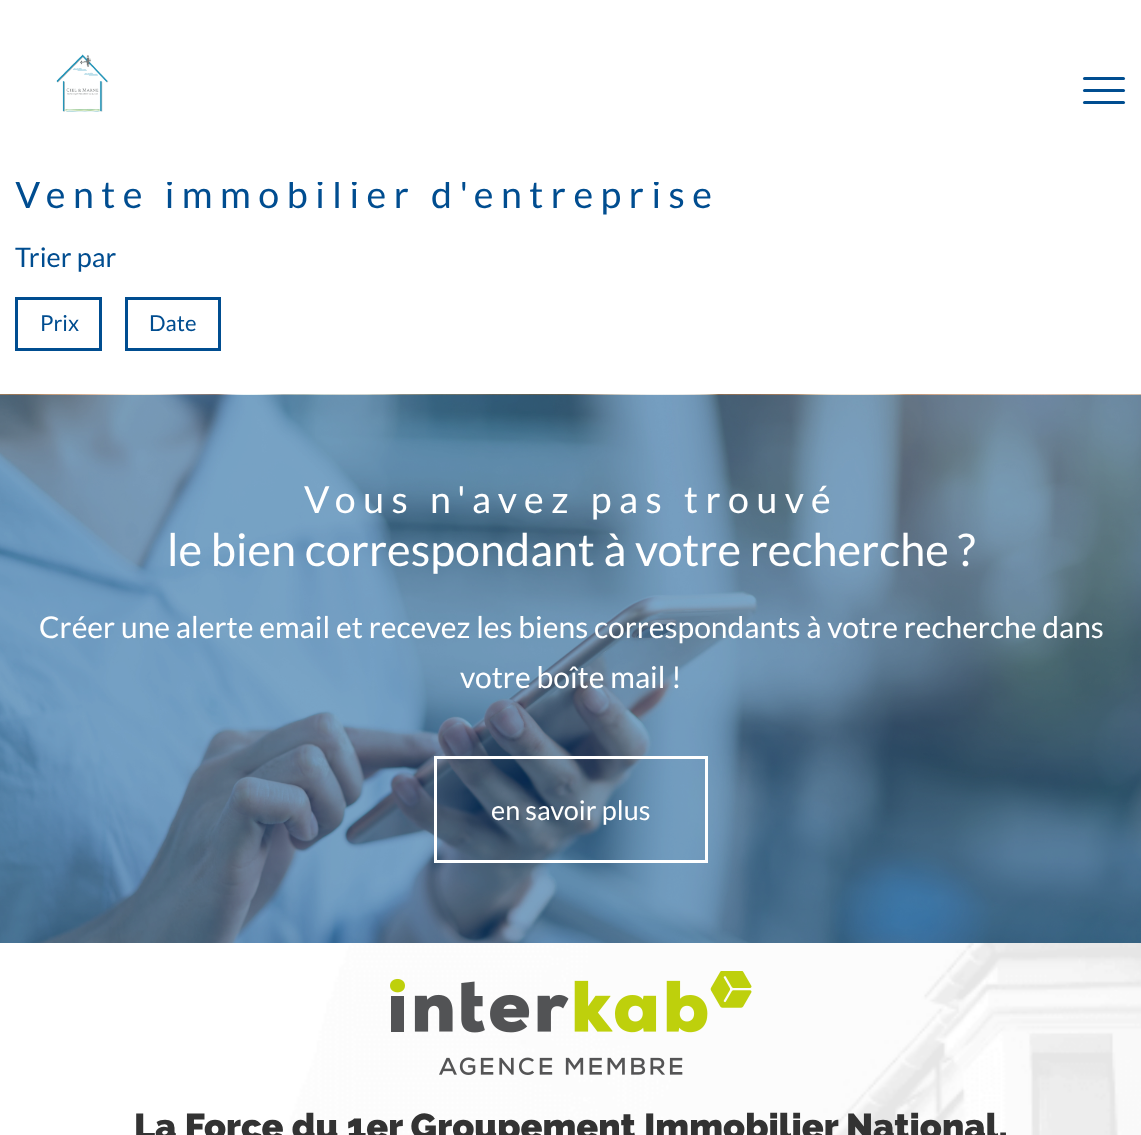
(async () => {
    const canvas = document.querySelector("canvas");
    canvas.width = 1141;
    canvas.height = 1135;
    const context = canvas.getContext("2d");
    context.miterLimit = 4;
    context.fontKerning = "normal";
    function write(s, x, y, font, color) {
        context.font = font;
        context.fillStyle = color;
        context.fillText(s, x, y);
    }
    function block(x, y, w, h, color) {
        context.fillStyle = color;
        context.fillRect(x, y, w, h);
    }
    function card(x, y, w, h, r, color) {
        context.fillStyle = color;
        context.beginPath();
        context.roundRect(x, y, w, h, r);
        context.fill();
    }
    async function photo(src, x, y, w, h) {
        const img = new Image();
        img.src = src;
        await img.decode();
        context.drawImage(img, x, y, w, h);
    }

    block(0, 0, 1141, 1135, "rgb(255, 255, 255)");
    context.letterSpacing = "7.5px";
    write("Vente immobilier d'entreprise", 15, 208, "37.5px Lato", "rgb(0, 77, 144)");
    block(15, 180, 644, 2, "rgb(255, 255, 255)");
    await photo("media/1.png", 56, 54, 53, 58);
    card(1083, 89, 42, 3, 1.5, "rgb(0, 77, 144)");
    card(1083, 77, 42, 3, 1.5, "rgb(0, 77, 144)");
    card(1083, 101, 42, 3, 1.5, "rgb(0, 77, 144)");
    context.letterSpacing = "0px";
    write("Trier par", 15, 267, "27px Lato", "rgb(0, 77, 144)");
    context.strokeStyle = "rgb(0, 77, 144)";
    context.lineWidth = 3;
    context.strokeRect(16.5, 298.5, 84, 51);
    write("Prix", 40, 331, "22px Lato", "rgb(0, 77, 144)");
    context.strokeRect(126.5, 298.5, 93, 51);
    write("Date", 149, 331, "22px Lato", "rgb(0, 77, 144)");
    await photo("media/2.png", 0, 394, 1141, 549);
    context.letterSpacing = "7.5px";
    write("Vous n'avez pas trouvé", 304, 513, "37.5px Lato", "rgb(255, 255, 255)");
    context.letterSpacing = "0px";
    write("le bien correspondant à votre recherche ?", 167, 566, "45px Lato", "rgb(255, 255, 255)");
    write("Créer une alerte email et recevez les biens correspondants à votre recherche dans", 39, 638, "30px Lato", "rgb(255, 255, 255)");
    write("votre boîte mail !", 460, 688, "30px Lato", "rgb(255, 255, 255)");
    context.strokeStyle = "rgb(255, 255, 255)";
    context.strokeRect(435.5, 757.5, 271, 104);
    write("en savoir plus", 491, 820, "27px Lato", "rgb(255, 255, 255)");
    await photo("media/3.png", 0, 943, 1141, 192);
    await photo("media/4.png", 390, 971, 362, 104);
    write("La Force du 1er Groupement Immobilier National,", 134, 1139, "100 36px Raleway", "rgb(51, 51, 51)");
})();
